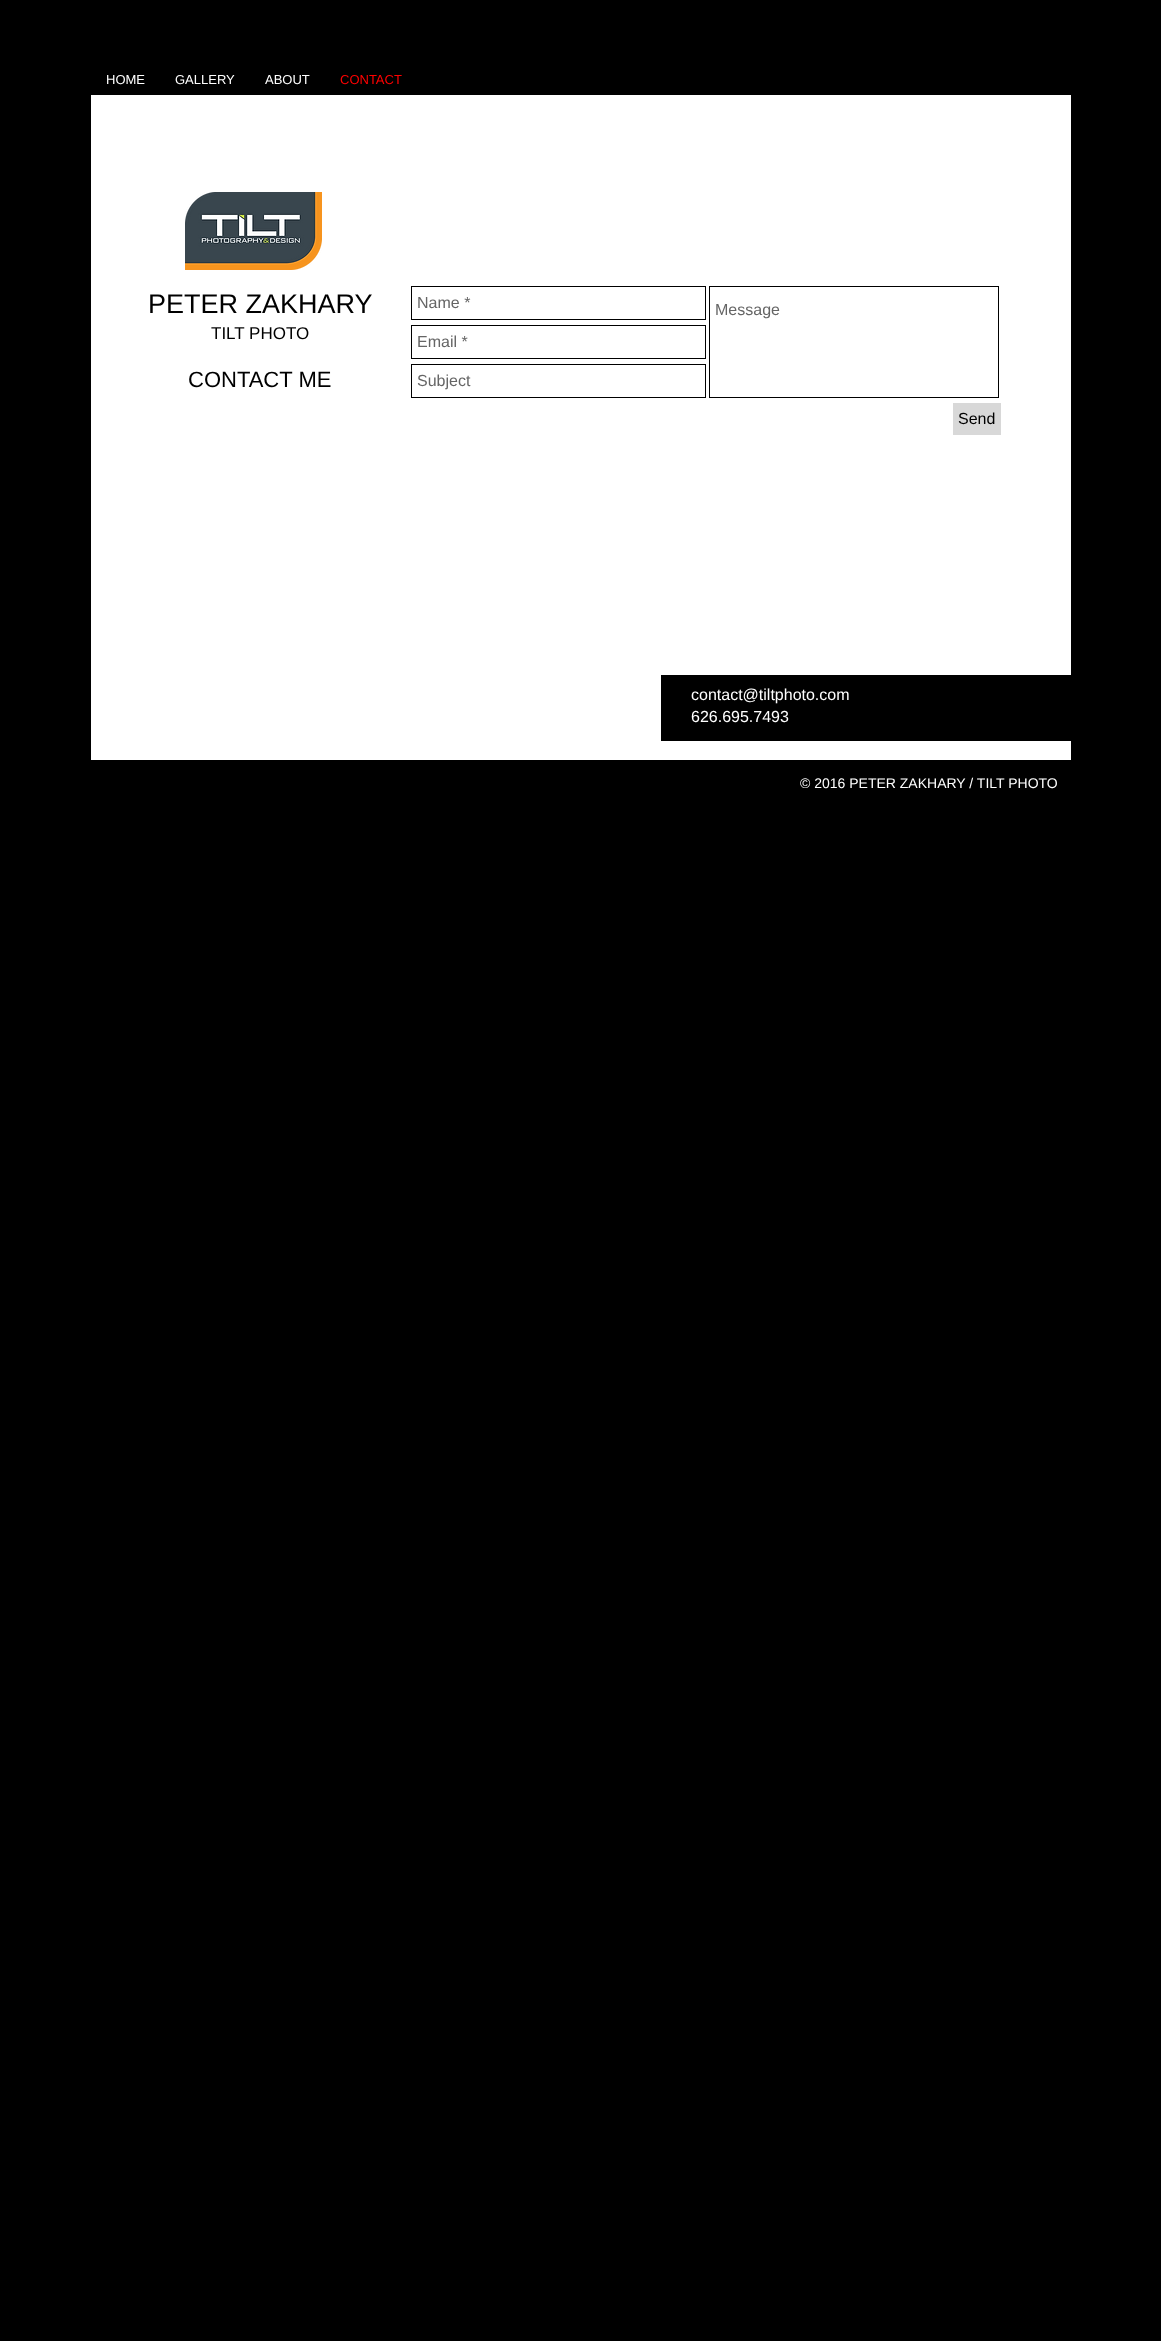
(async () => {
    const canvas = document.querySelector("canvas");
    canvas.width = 1161;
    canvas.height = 2341;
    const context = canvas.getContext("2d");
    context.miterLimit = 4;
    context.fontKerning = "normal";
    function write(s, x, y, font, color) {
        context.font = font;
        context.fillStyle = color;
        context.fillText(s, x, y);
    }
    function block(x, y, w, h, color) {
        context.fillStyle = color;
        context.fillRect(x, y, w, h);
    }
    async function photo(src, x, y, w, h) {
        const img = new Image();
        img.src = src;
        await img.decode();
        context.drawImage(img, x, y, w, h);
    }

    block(0, 0, 1161, 2341, "rgb(0, 0, 0)");
    write("HOME", 106, 84, "13px Liberation Sans", "rgb(255, 255, 255)");
    write("GALLERY", 175, 84, "13px Liberation Sans", "rgb(255, 255, 255)");
    write("ABOUT", 265, 84, "13px Liberation Sans", "rgb(255, 255, 255)");
    write("CONTACT", 340, 84, "13px Liberation Sans", "rgb(255, 0, 0)");
    block(91, 95, 980, 665, "rgb(255, 255, 255)");
    await photo("media/1.png", 185, 192, 137, 78);
    write("PETER ZAKHARY", 148, 313, "27px Liberation Sans", "rgb(0, 0, 0)");
    write("TILT PHOTO", 211, 339, "17px Liberation Sans", "rgb(0, 0, 0)");
    context.strokeStyle = "rgb(0, 0, 0)";
    context.strokeRect(411.5, 286.5, 294, 33);
    write("Name *", 417, 308, "16px Liberation Sans", "rgb(101, 101, 101)");
    context.strokeRect(709.5, 286.5, 289, 111);
    write("Message", 715, 315, "16px Liberation Sans", "rgb(101, 101, 101)");
    context.strokeRect(411.5, 325.5, 294, 33);
    write("Email *", 417, 347, "16px Liberation Sans", "rgb(101, 101, 101)");
    context.strokeRect(411.5, 364.5, 294, 33);
    write("Subject", 417, 386, "16px Liberation Sans", "rgb(101, 101, 101)");
    block(953, 403, 48, 32, "rgb(216, 216, 216)");
    write("Send", 958, 424, "16px Liberation Sans", "rgb(0, 0, 0)");
    write("CONTACT ME", 188, 387, "22px Liberation Sans", "rgb(0, 0, 0)");
    block(661, 675, 410, 66, "rgb(0, 0, 0)");
    write("contact@tiltphoto.com", 691, 700, "16px Liberation Sans", "rgb(255, 255, 255)");
    write("626.695.7493", 691, 722, "16px Liberation Sans", "rgb(255, 255, 255)");
    write("© 2016 PETER ZAKHARY / TILT PHOTO", 800, 788, "14px Liberation Sans", "rgb(255, 255, 255)");
})();
